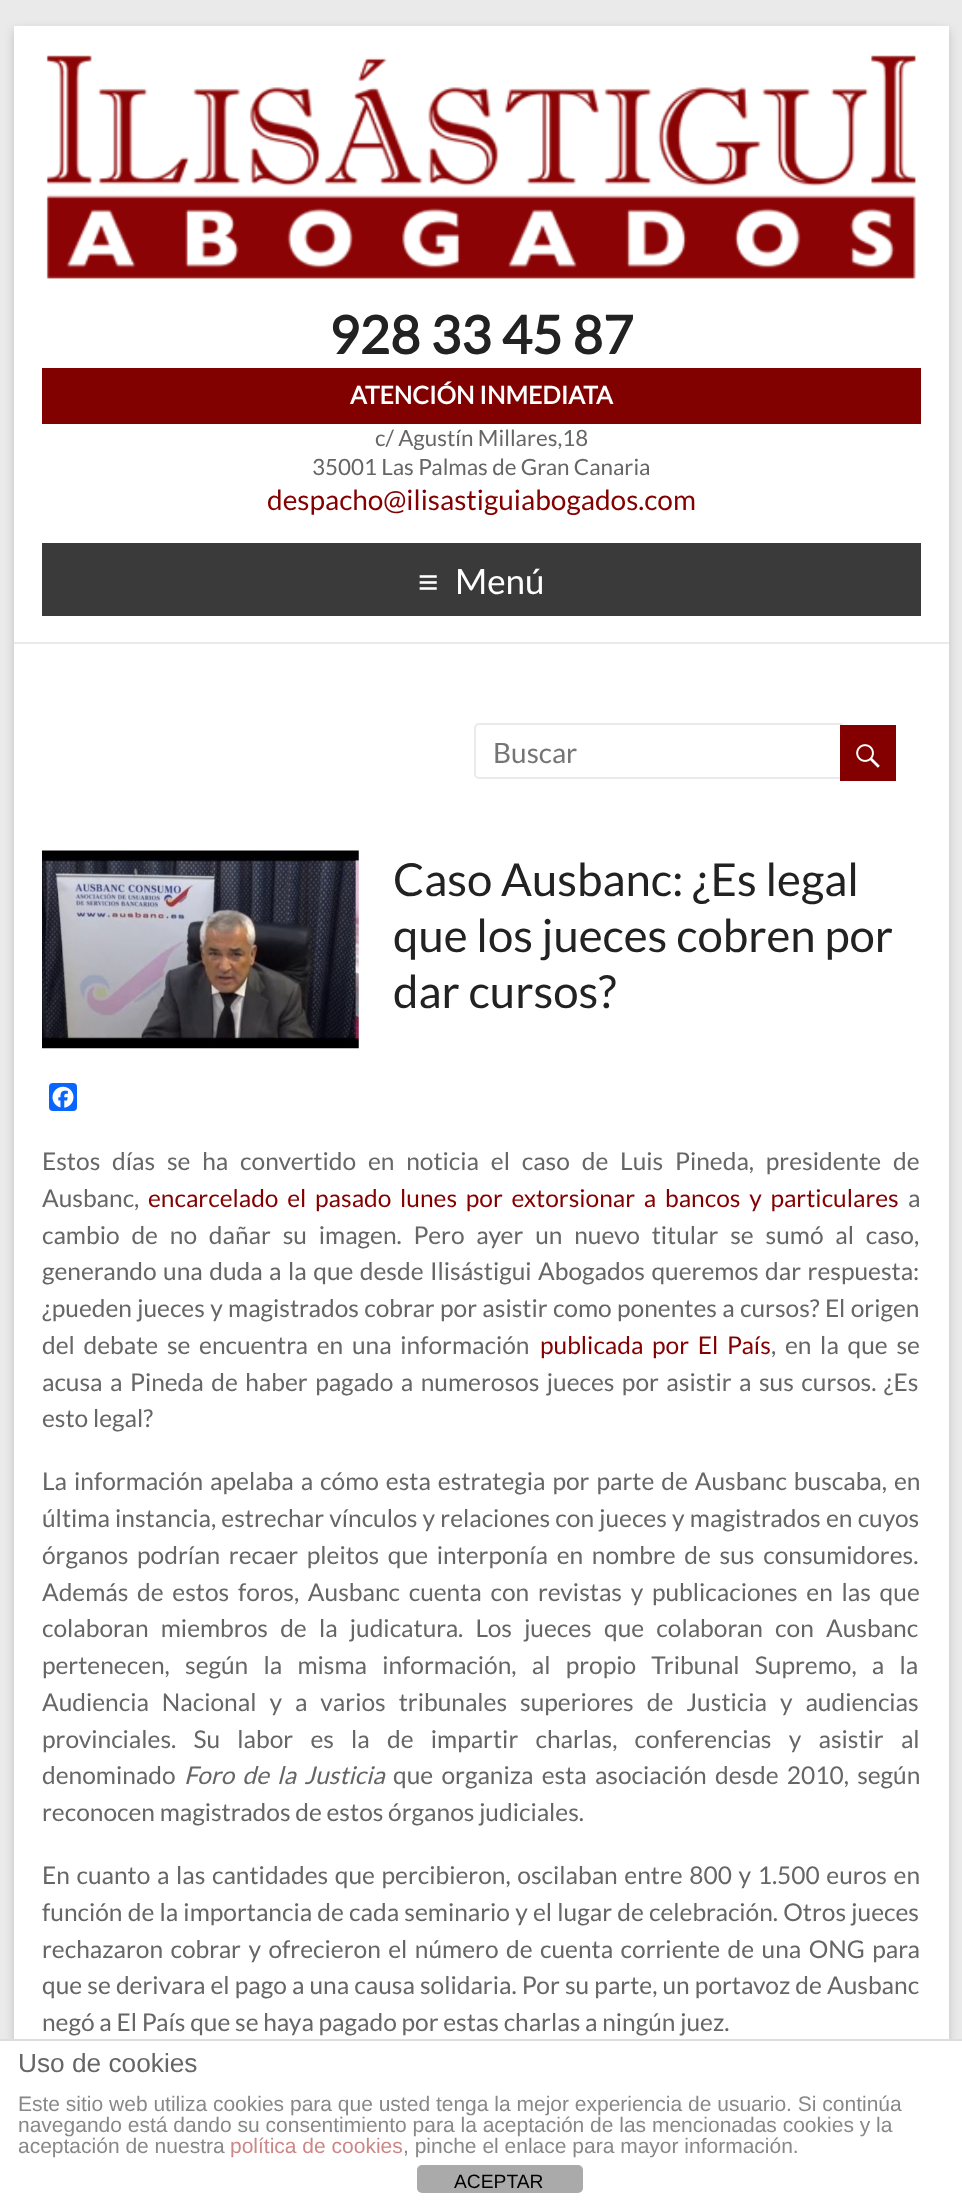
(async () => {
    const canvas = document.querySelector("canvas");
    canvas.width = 962;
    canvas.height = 2202;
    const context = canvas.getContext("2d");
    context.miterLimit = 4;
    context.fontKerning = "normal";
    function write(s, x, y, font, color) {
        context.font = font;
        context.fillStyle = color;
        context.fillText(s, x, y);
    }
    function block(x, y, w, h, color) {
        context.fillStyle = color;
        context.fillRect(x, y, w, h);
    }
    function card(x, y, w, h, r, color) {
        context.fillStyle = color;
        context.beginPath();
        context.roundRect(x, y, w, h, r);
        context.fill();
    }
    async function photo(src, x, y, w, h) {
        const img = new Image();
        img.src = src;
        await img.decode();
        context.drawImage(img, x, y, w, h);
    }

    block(0, 0, 962, 2202, "rgb(234, 234, 234)");
    context.fillStyle = "rgba(100, 100, 100, 0.3)";
    context.filter = "blur(5px)";
    context.beginPath();
    context.rect(14, 30, 935, 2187);
    context.fill();
    context.filter = "none";
    block(14, 26, 935, 2013, "rgb(255, 255, 255)");
    block(14, 642, 935, 2, "rgb(234, 234, 234)");
    await photo("media/1.png", 46, 55, 870, 224);
    write("928 33 45 87", 329, 354, "bold 52.5px Lato", "rgb(34, 34, 34)");
    block(42, 368, 879, 56, "rgb(129, 0, 0)");
    write("ATENCIÓN INMEDIATA", 350, 404, "bold 24.5px Lato", "rgb(255, 255, 255)");
    write("c/ Agustín Millares,18", 375, 446, "22.4px Lato", "rgb(102, 102, 102)");
    write("35001 Las Palmas de Gran Canaria", 312, 475, "22.4px Lato", "rgb(102, 102, 102)");
    write("despacho@ilisastiguiabogados.com", 267, 510, "28px Lato", "rgb(132, 0, 0)");
    block(42, 543, 879, 73, "rgb(58, 58, 58)");
    write("≡", 418, 594, "35px Liberation Sans", "rgb(255, 255, 255)");
    write("Menú", 455, 594, "35px Lato", "rgb(255, 255, 255)");
    context.beginPath();
    context.roundRect(475, 724, 369, 54, 4);
    context.strokeStyle = "rgb(234, 234, 234)";
    context.lineWidth = 2;
    context.stroke();
    write("Buscar", 493, 763, "28px Lato", "rgb(117, 117, 117)");
    block(840, 725, 56, 56, "rgb(132, 0, 0)");
    await photo("media/2.png", 856, 744, 24, 24);
    await photo("media/3.png", 42, 850, 317, 199);
    write("Caso Ausbanc: ¿Es legal", 393, 896, "45.5px Lato", "rgb(34, 34, 34)");
    write("que los jueces cobren por", 393, 952, "45.5px Lato", "rgb(34, 34, 34)");
    write("dar cursos?", 393, 1008, "45.5px Lato", "rgb(34, 34, 34)");
    card(49, 1083, 28, 28, 4, "rgb(8, 102, 255)");
    await photo("media/4.png", 52, 1086, 22, 22);
    context.wordSpacing = "7.1px";
    write("Estos días se ha convertido en noticia el caso de Luis Pineda, presidente de", 42, 1170, "24.5px Lato", "rgb(102, 102, 102)");
    context.wordSpacing = "0px";
    write("Ausbanc,", 42, 1207, "24.5px Lato", "rgb(102, 102, 102)");
    context.wordSpacing = "4px";
    write("encarcelado el pasado lunes por extorsionar a bancos y particulares", 148, 1207, "24.5px Lato", "rgb(132, 0, 0)");
    context.wordSpacing = "0px";
    write("a", 908, 1207, "24.5px Lato", "rgb(102, 102, 102)");
    context.wordSpacing = "7.1px";
    write("cambio de no dañar su imagen. Pero ayer un nuevo titular se sumó al caso,", 42, 1244, "24.5px Lato", "rgb(102, 102, 102)");
    context.wordSpacing = "1.75px";
    write("generando una duda a la que desde Ilisástigui Abogados queremos dar respuesta:", 42, 1280, "24.5px Lato", "rgb(102, 102, 102)");
    context.wordSpacing = "0.6px";
    write("¿pueden jueces y magistrados cobrar por asistir como ponentes a cursos? El origen", 42, 1317, "24.5px Lato", "rgb(102, 102, 102)");
    context.wordSpacing = "4px";
    write("del debate se encuentra en una información", 42, 1354, "24.5px Lato", "rgb(102, 102, 102)");
    write("publicada por El País", 540, 1354, "24.5px Lato", "rgb(132, 0, 0)");
    write(", en la que se", 771, 1354, "24.5px Lato", "rgb(102, 102, 102)");
    context.wordSpacing = "2.75px";
    write("acusa a Pineda de haber pagado a numerosos jueces por asistir a sus cursos. ¿Es", 42, 1391, "24.5px Lato", "rgb(102, 102, 102)");
    context.wordSpacing = "0px";
    write("esto legal?", 42, 1427, "24.5px Lato", "rgb(102, 102, 102)");
    context.wordSpacing = "2.25px";
    write("La información apelaba a cómo esta estrategia por parte de Ausbanc buscaba, en", 42, 1490, "24.5px Lato", "rgb(102, 102, 102)");
    context.wordSpacing = "0.5px";
    write("última instancia, estrechar vínculos y relaciones con jueces y magistrados en cuyos", 42, 1527, "24.5px Lato", "rgb(102, 102, 102)");
    context.wordSpacing = "4px";
    write("órganos podrían recaer pleitos que interponía en nombre de sus consumidores.", 42, 1564, "24.5px Lato", "rgb(102, 102, 102)");
    write("Además de estos foros, Ausbanc cuenta con revistas y publicaciones en las que", 42, 1601, "24.5px Lato", "rgb(102, 102, 102)");
    context.wordSpacing = "7.5px";
    write("colaboran miembros de la judicatura. Los jueces que colaboran con Ausbanc", 42, 1637, "24.5px Lato", "rgb(102, 102, 102)");
    context.wordSpacing = "10.5px";
    write("pertenecen, según la misma información, al propio Tribunal Supremo, a la", 42, 1674, "24.5px Lato", "rgb(102, 102, 102)");
    context.wordSpacing = "8.25px";
    write("Audiencia Nacional y a varios tribunales superiores de Justicia y audiencias", 42, 1711, "24.5px Lato", "rgb(102, 102, 102)");
    context.wordSpacing = "12.5px";
    write("provinciales. Su labor es la de impartir charlas, conferencias y asistir al", 42, 1748, "24.5px Lato", "rgb(102, 102, 102)");
    context.wordSpacing = "0px";
    write("denominado", 42, 1784, "24.5px Lato", "rgb(102, 102, 102)");
    context.wordSpacing = "3.5px";
    write("Foro de la Justicia", 184, 1784, "italic 24.5px Lato", "rgb(102, 102, 102)");
    write("que organiza esta asociación desde 2010, según", 393, 1784, "24.5px Lato", "rgb(102, 102, 102)");
    context.wordSpacing = "0px";
    write("reconocen magistrados de estos órganos judiciales.", 42, 1821, "24.5px Lato", "rgb(102, 102, 102)");
    context.wordSpacing = "1.9px";
    write("En cuanto a las cantidades que percibieron, oscilaban entre 800 y 1.500 euros en", 42, 1884, "24.5px Lato", "rgb(102, 102, 102)");
    context.wordSpacing = "0.5px";
    write("función de la importancia de cada seminario y el lugar de celebración. Otros jueces", 42, 1921, "24.5px Lato", "rgb(102, 102, 102)");
    context.wordSpacing = "2.75px";
    write("rechazaron cobrar y ofrecieron el número de cuenta corriente de una ONG para", 42, 1958, "24.5px Lato", "rgb(102, 102, 102)");
    context.wordSpacing = "0.4px";
    write("que se derivara el pago a una causa solidaria. Por su parte, un portavoz de Ausbanc", 42, 1994, "24.5px Lato", "rgb(102, 102, 102)");
    context.wordSpacing = "0px";
    write("negó a El País que se haya pagado por estas charlas a ningún juez.", 42, 2031, "24.5px Lato", "rgb(102, 102, 102)");
    block(0, 2041, 962, 161, "rgb(255, 255, 255)");
    block(0, 2039, 962, 2, "rgb(221, 221, 221)");
    write("Uso de cookies", 18, 2072, "26.25px Liberation Sans", "rgb(102, 102, 102)");
    write("Este sitio web utiliza cookies para que usted tenga la mejor experiencia de usuario. Si continúa", 18, 2111, "21px Liberation Sans", "rgb(136, 136, 136)");
    write("navegando está dando su consentimiento para la aceptación de las mencionadas cookies y la", 18, 2132, "21px Liberation Sans", "rgb(136, 136, 136)");
    write("aceptación de nuestra", 18, 2153, "21px Liberation Sans", "rgb(136, 136, 136)");
    write("política de cookies", 230, 2153, "21px Liberation Sans", "rgb(204, 136, 136)");
    write(", pinche el enlace para mayor información.", 403, 2153, "21px Liberation Sans", "rgb(136, 136, 136)");
    card(417, 2165, 166, 28, 5, "rgb(170, 170, 170)");
    write("ACEPTAR", 454, 2188, "19.25px Liberation Sans", "rgb(0, 0, 0)");
})();
